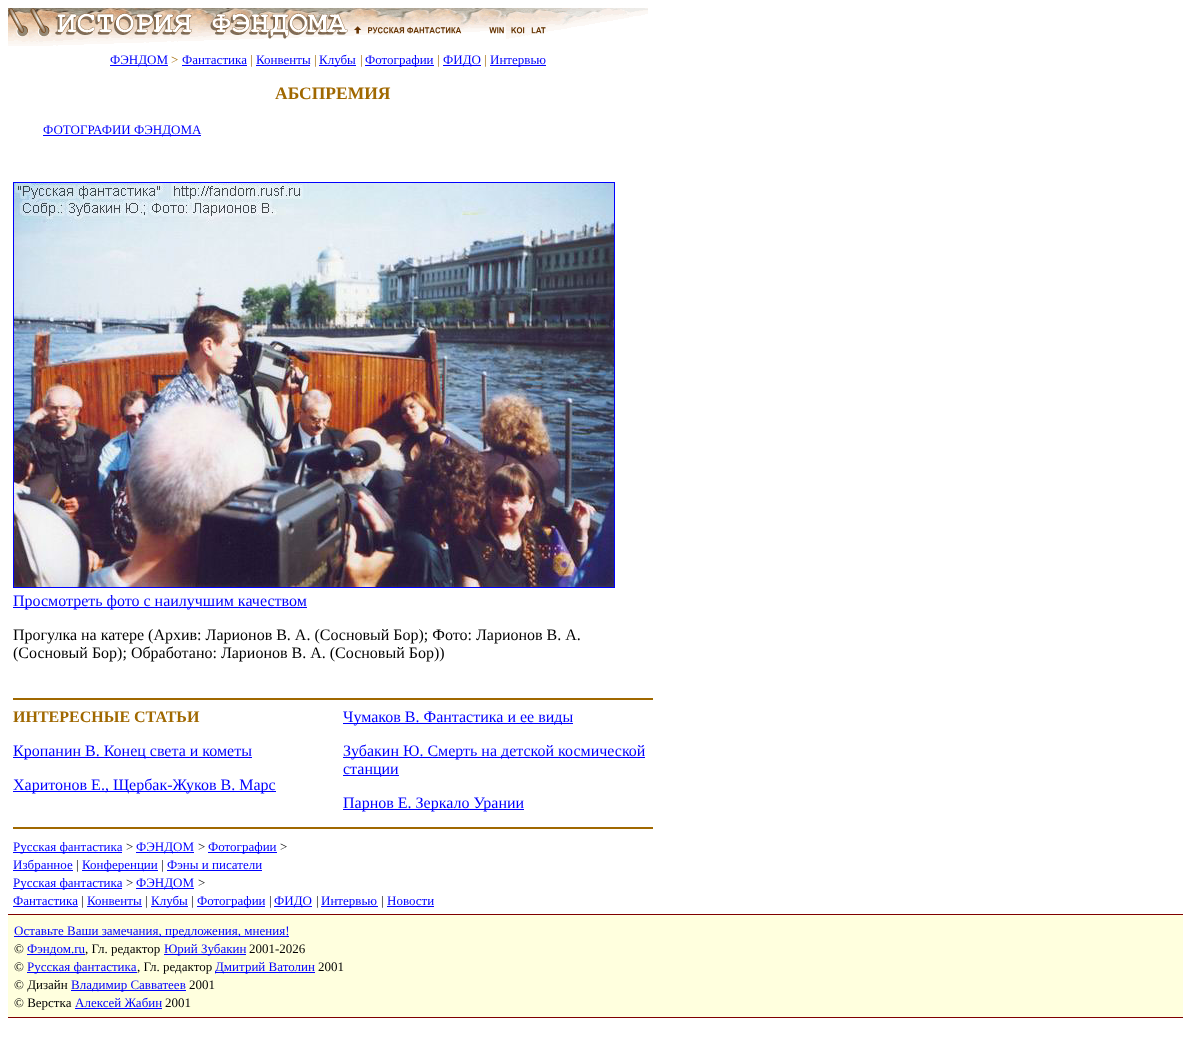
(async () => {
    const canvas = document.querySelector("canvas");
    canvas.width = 1191;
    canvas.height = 1061;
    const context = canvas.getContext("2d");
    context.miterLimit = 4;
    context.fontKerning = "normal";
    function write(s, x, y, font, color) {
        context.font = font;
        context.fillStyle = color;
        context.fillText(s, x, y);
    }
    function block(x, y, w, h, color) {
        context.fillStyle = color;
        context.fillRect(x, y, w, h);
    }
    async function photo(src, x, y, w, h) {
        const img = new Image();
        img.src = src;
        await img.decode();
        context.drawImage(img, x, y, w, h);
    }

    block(0, 0, 1191, 1061, "rgb(255, 255, 255)");
    await photo("media/1.png", 8, 8, 640, 38);
    block(110, 65, 58, 1, "rgb(0, 0, 255)");
    write("ФЭНДОМ", 110, 64, "13px Liberation Serif", "rgb(0, 0, 255)");
    write(">", 171, 64, "13px Liberation Serif", "rgb(160, 104, 0)");
    write("Фантастика", 182, 64, "13px Liberation Serif", "rgb(0, 0, 255)");
    block(182, 65, 65, 1, "rgb(0, 0, 255)");
    write("|", 250, 64, "13px Liberation Serif", "rgb(160, 104, 0)");
    write("Конвенты", 256, 64, "13px Liberation Serif", "rgb(0, 0, 255)");
    block(256, 65, 54, 1, "rgb(0, 0, 255)");
    write("|", 314, 64, "13px Liberation Serif", "rgb(160, 104, 0)");
    block(319, 65, 37, 1, "rgb(0, 0, 255)");
    write("Клубы", 319, 64, "13px Liberation Serif", "rgb(0, 0, 255)");
    write("|", 360, 64, "13px Liberation Serif", "rgb(160, 104, 0)");
    block(365, 65, 69, 1, "rgb(0, 0, 255)");
    write("Фотографии", 365, 64, "13px Liberation Serif", "rgb(0, 0, 255)");
    write("|", 437, 64, "13px Liberation Serif", "rgb(160, 104, 0)");
    block(443, 65, 38, 1, "rgb(0, 0, 255)");
    write("ФИДО", 443, 64, "13px Liberation Serif", "rgb(0, 0, 255)");
    write("|", 484, 64, "13px Liberation Serif", "rgb(160, 104, 0)");
    block(490, 65, 56, 1, "rgb(0, 0, 255)");
    write("Интервью", 490, 64, "13px Liberation Serif", "rgb(0, 0, 255)");
    write("АБСПРЕМИЯ", 275, 99, "bold 17.5px Liberation Serif", "rgb(160, 104, 0)");
    block(43, 135, 158, 1, "rgb(0, 0, 255)");
    write("ФОТОГРАФИИ ФЭНДОМА", 43, 134, "13px Liberation Serif", "rgb(0, 0, 255)");
    context.strokeStyle = "rgb(0, 0, 255)";
    context.strokeRect(13.5, 182.5, 601, 405);
    await photo("media/2.png", 14, 183, 600, 404);
    block(13, 607, 294, 1, "rgb(0, 0, 255)");
    write("Просмотреть фото с наилучшим качеством", 13, 606, "16px Liberation Serif", "rgb(0, 0, 255)");
    write("Прогулка на катере (Архив: Ларионов В. А. (Сосновый Бор); Фото: Ларионов В. А.", 13, 640, "16px Liberation Serif", "rgb(0, 0, 0)");
    write("(Сосновый Бор); Обработано: Ларионов В. А. (Сосновый Бор))", 13, 658, "16px Liberation Serif", "rgb(0, 0, 0)");
    block(13, 698, 640, 2, "rgb(160, 104, 0)");
    write("ИНТЕРЕСНЫЕ СТАТЬИ", 13, 722, "bold 16px Liberation Serif", "rgb(160, 104, 0)");
    block(343, 723, 230, 1, "rgb(0, 0, 255)");
    write("Чумаков В. Фантастика и ее виды", 343, 722, "16px Liberation Serif", "rgb(0, 0, 255)");
    block(13, 757, 239, 1, "rgb(0, 0, 255)");
    write("Кропанин В. Конец света и кометы", 13, 756, "16px Liberation Serif", "rgb(0, 0, 255)");
    block(343, 757, 302, 1, "rgb(0, 0, 255)");
    write("Зубакин Ю. Смерть на детской космической", 343, 756, "16px Liberation Serif", "rgb(0, 0, 255)");
    block(343, 775, 56, 1, "rgb(0, 0, 255)");
    write("станции", 343, 774, "16px Liberation Serif", "rgb(0, 0, 255)");
    block(13, 791, 263, 1, "rgb(0, 0, 255)");
    write("Харитонов Е., Щербак-Жуков В. Марс", 13, 790, "16px Liberation Serif", "rgb(0, 0, 255)");
    block(343, 809, 181, 1, "rgb(0, 0, 255)");
    write("Парнов Е. Зеркало Урании", 343, 808, "16px Liberation Serif", "rgb(0, 0, 255)");
    block(13, 827, 640, 2, "rgb(160, 104, 0)");
    block(13, 852, 109, 1, "rgb(0, 0, 255)");
    write("Русская фантастика", 13, 851, "13px Liberation Serif", "rgb(0, 0, 255)");
    write(">", 126, 851, "13px Liberation Serif", "rgb(0, 0, 0)");
    block(136, 852, 58, 1, "rgb(0, 0, 255)");
    write("ФЭНДОМ", 136, 851, "13px Liberation Serif", "rgb(0, 0, 255)");
    write(">", 198, 851, "13px Liberation Serif", "rgb(0, 0, 0)");
    block(208, 852, 69, 1, "rgb(0, 0, 255)");
    write("Фотографии", 208, 851, "13px Liberation Serif", "rgb(0, 0, 255)");
    write(">", 280, 851, "13px Liberation Serif", "rgb(0, 0, 0)");
    block(13, 870, 60, 1, "rgb(0, 0, 255)");
    write("Избранное", 13, 869, "13px Liberation Serif", "rgb(0, 0, 255)");
    write("|", 76, 869, "13px Liberation Serif", "rgb(0, 0, 0)");
    block(82, 870, 76, 1, "rgb(0, 0, 255)");
    write("Конференции", 82, 869, "13px Liberation Serif", "rgb(0, 0, 255)");
    write("|", 161, 869, "13px Liberation Serif", "rgb(0, 0, 0)");
    write("Фэны и писатели", 167, 869, "13px Liberation Serif", "rgb(0, 0, 255)");
    block(167, 870, 95, 1, "rgb(0, 0, 255)");
    block(13, 888, 109, 1, "rgb(0, 0, 255)");
    write("Русская фантастика", 13, 887, "13px Liberation Serif", "rgb(0, 0, 255)");
    write(">", 126, 887, "13px Liberation Serif", "rgb(0, 0, 0)");
    block(136, 888, 58, 1, "rgb(0, 0, 255)");
    write("ФЭНДОМ", 136, 887, "13px Liberation Serif", "rgb(0, 0, 255)");
    write(">", 198, 887, "13px Liberation Serif", "rgb(0, 0, 0)");
    write("Фантастика", 13, 905, "13px Liberation Serif", "rgb(0, 0, 255)");
    block(13, 906, 65, 1, "rgb(0, 0, 255)");
    write("|", 81, 905, "13px Liberation Serif", "rgb(0, 0, 0)");
    write("Конвенты", 87, 905, "13px Liberation Serif", "rgb(0, 0, 255)");
    block(87, 906, 55, 1, "rgb(0, 0, 255)");
    write("|", 145, 905, "13px Liberation Serif", "rgb(0, 0, 0)");
    block(151, 906, 37, 1, "rgb(0, 0, 255)");
    write("Клубы", 151, 905, "13px Liberation Serif", "rgb(0, 0, 255)");
    write("|", 191, 905, "13px Liberation Serif", "rgb(0, 0, 0)");
    block(197, 906, 68, 1, "rgb(0, 0, 255)");
    write("Фотографии", 197, 905, "13px Liberation Serif", "rgb(0, 0, 255)");
    write("|", 269, 905, "13px Liberation Serif", "rgb(0, 0, 0)");
    block(274, 906, 38, 1, "rgb(0, 0, 255)");
    write("ФИДО", 274, 905, "13px Liberation Serif", "rgb(0, 0, 255)");
    write("|", 316, 905, "13px Liberation Serif", "rgb(0, 0, 0)");
    block(321, 906, 57, 1, "rgb(0, 0, 255)");
    write("Интервью", 321, 905, "13px Liberation Serif", "rgb(0, 0, 255)");
    write("|", 381, 905, "13px Liberation Serif", "rgb(0, 0, 0)");
    write("Новости", 387, 905, "13px Liberation Serif", "rgb(0, 0, 255)");
    block(387, 906, 47, 1, "rgb(0, 0, 255)");
    block(8, 914, 1175, 1, "rgb(128, 0, 0)");
    block(8, 915, 1175, 102, "rgb(255, 255, 222)");
    block(14, 936, 275, 1, "rgb(0, 0, 255)");
    write("Оставьте Ваши замечания, предложения, мнения!", 14, 935, "13px Liberation Serif", "rgb(0, 0, 255)");
    write("©", 14, 953, "13px Liberation Serif", "rgb(0, 0, 0)");
    block(27, 954, 58, 1, "rgb(0, 0, 255)");
    write("Фэндом.ru", 27, 953, "13px Liberation Serif", "rgb(0, 0, 255)");
    write(", Гл. редактор", 85, 953, "13px Liberation Serif", "rgb(0, 0, 0)");
    block(164, 954, 82, 1, "rgb(0, 0, 255)");
    write("Юрий Зубакин", 164, 953, "13px Liberation Serif", "rgb(0, 0, 255)");
    write("2001-2026", 249, 953, "13px Liberation Serif", "rgb(0, 0, 0)");
    write("©", 14, 971, "13px Liberation Serif", "rgb(0, 0, 0)");
    block(27, 972, 110, 1, "rgb(0, 0, 255)");
    write("Русская фантастика", 27, 971, "13px Liberation Serif", "rgb(0, 0, 255)");
    write(", Гл. редактор", 137, 971, "13px Liberation Serif", "rgb(0, 0, 0)");
    block(215, 972, 100, 1, "rgb(0, 0, 255)");
    write("Дмитрий Ватолин", 215, 971, "13px Liberation Serif", "rgb(0, 0, 255)");
    write("2001", 318, 971, "13px Liberation Serif", "rgb(0, 0, 0)");
    write("© Дизайн", 14, 989, "13px Liberation Serif", "rgb(0, 0, 0)");
    block(71, 990, 115, 1, "rgb(0, 0, 255)");
    write("Владимир Савватеев", 71, 989, "13px Liberation Serif", "rgb(0, 0, 255)");
    write("2001", 189, 989, "13px Liberation Serif", "rgb(0, 0, 0)");
    write("© Верстка", 14, 1007, "13px Liberation Serif", "rgb(0, 0, 0)");
    block(75, 1008, 87, 1, "rgb(0, 0, 255)");
    write("Алексей Жабин", 75, 1007, "13px Liberation Serif", "rgb(0, 0, 255)");
    write("2001", 165, 1007, "13px Liberation Serif", "rgb(0, 0, 0)");
    block(8, 1017, 1175, 1, "rgb(128, 0, 0)");
})();
